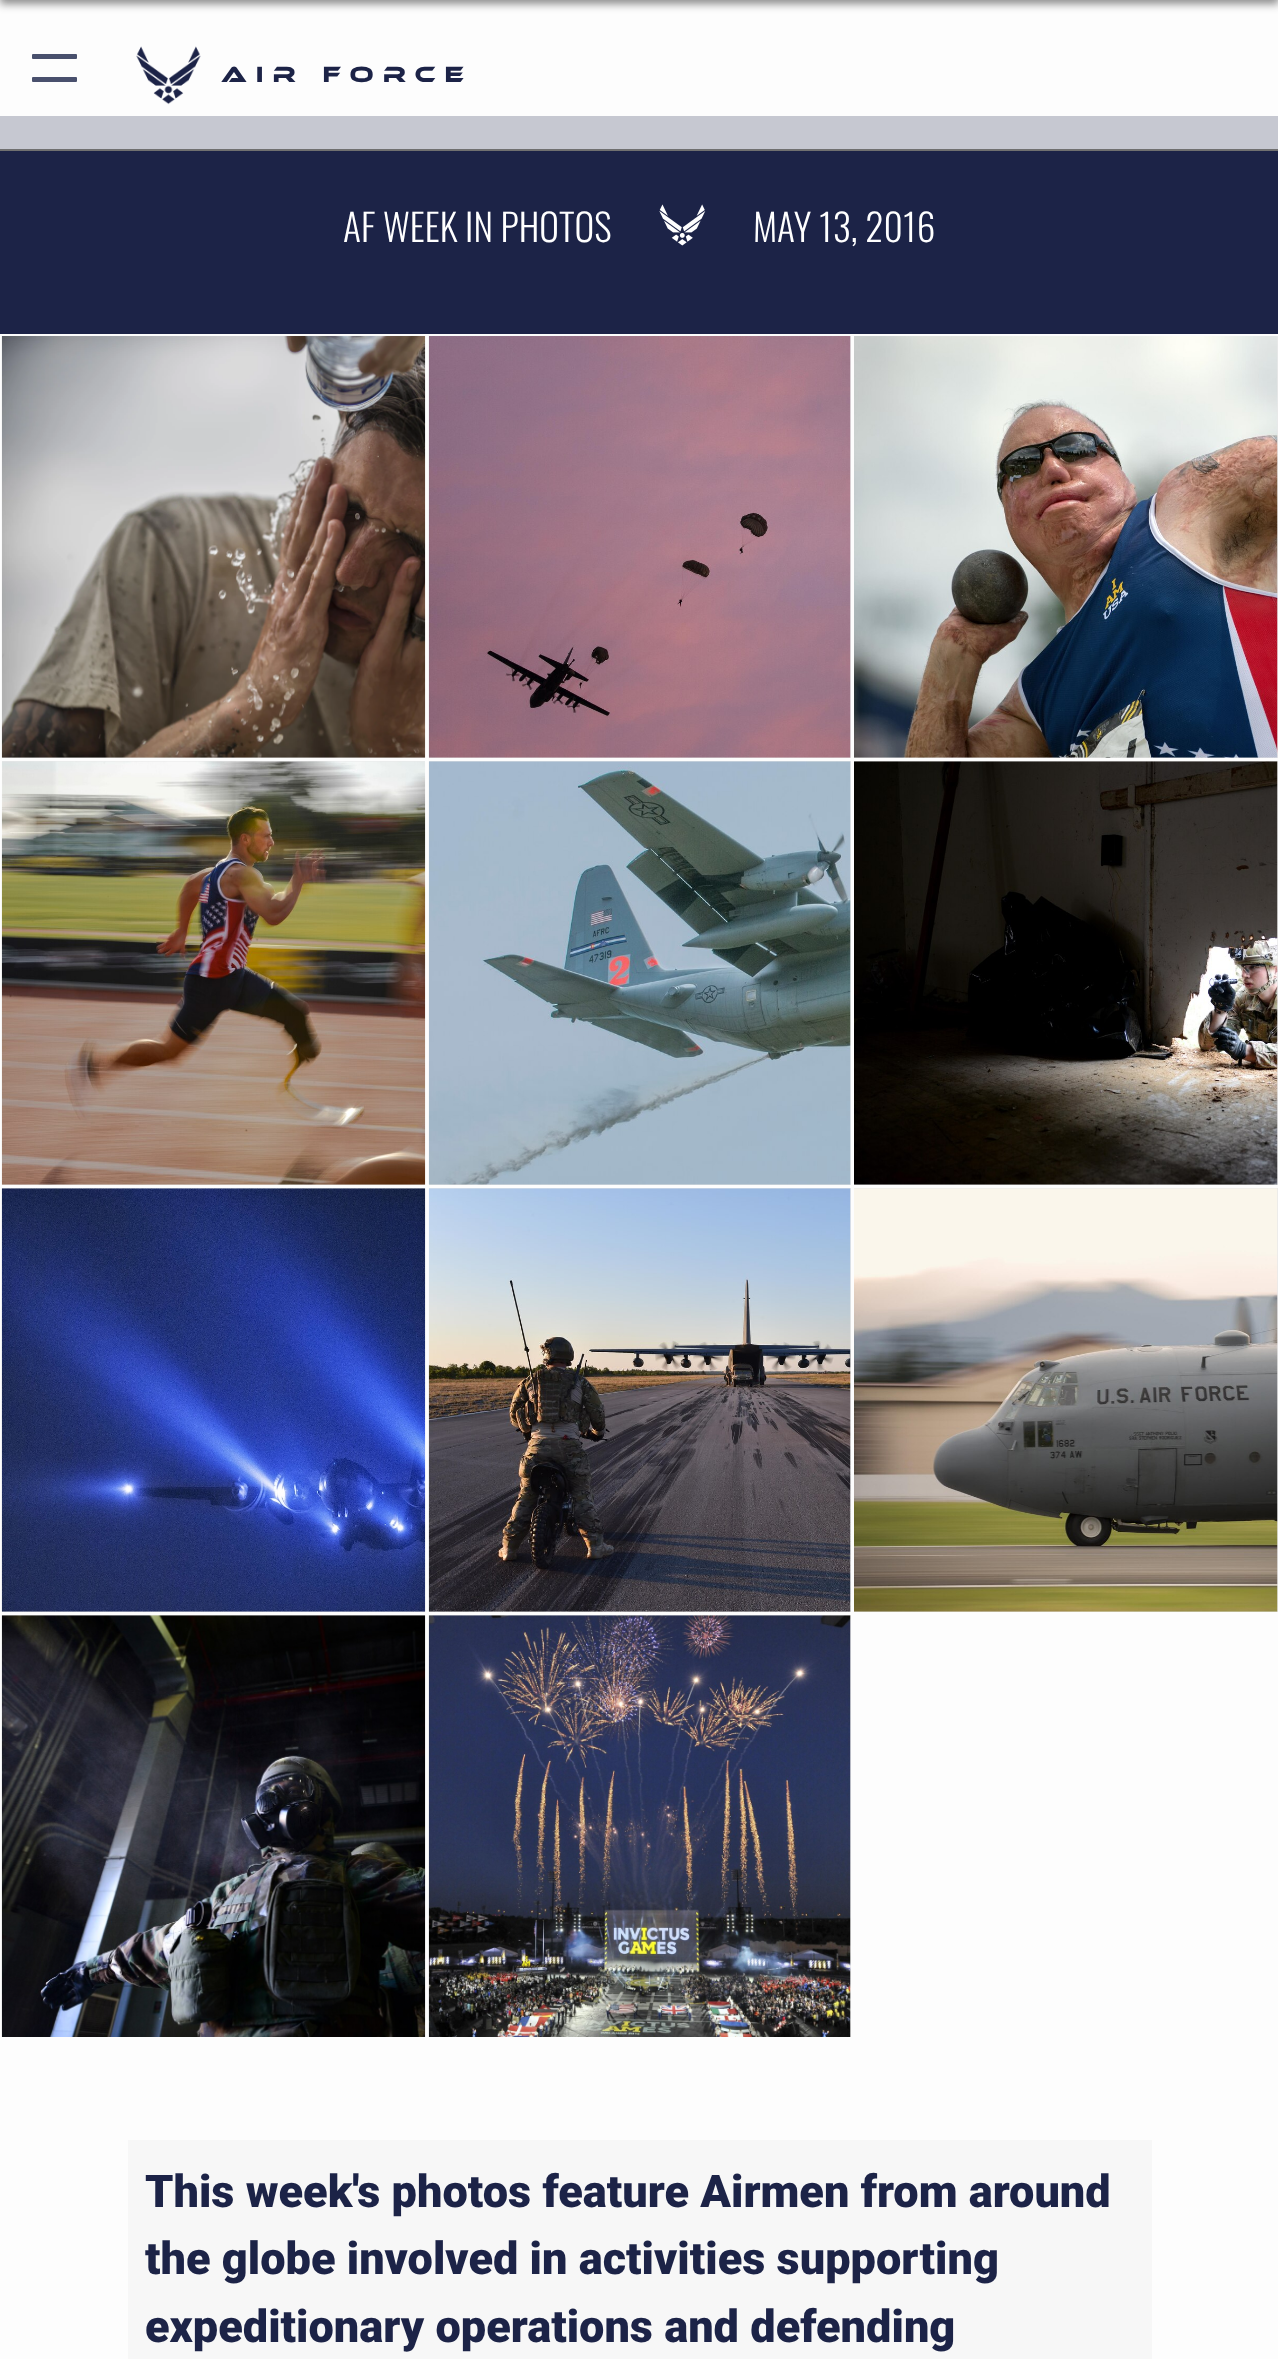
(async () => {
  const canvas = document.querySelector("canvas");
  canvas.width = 1278;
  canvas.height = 2359;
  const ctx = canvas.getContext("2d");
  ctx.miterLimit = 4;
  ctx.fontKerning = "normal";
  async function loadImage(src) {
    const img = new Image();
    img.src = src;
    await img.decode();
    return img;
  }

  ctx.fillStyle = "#fdfdfd";
  ctx.fillRect(0, 0, 1278, 2359);
  ctx.fillStyle = "rgba(25, 25, 25, 0.5)";
  ctx.filter = "blur(4.5px)";
  ctx.beginPath();
  ctx.rect(0, -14, 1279, 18);
  ctx.fill();
  ctx.filter = "none";
  ctx.fillStyle = "#707070";
  ctx.fillRect(0, 149, 1278, 2);
  ctx.fillStyle = "#49506d";
  ctx.beginPath();
  ctx.roundRect(32, 54, 45, 5, 1);
  ctx.fill();
  ctx.beginPath();
  ctx.roundRect(32, 77, 45, 5, 1);
  ctx.fill();
  ctx.drawImage(await loadImage("img/1.png"), 136, 46, 65, 59);
  ctx.fillStyle = "#1c2347";
  ctx.fillRect(0, 151, 1278, 183);
  ctx.fillStyle = "#c6c8d1";
  ctx.fillRect(0, 116, 1278, 33);
  ctx.drawImage(await loadImage("img/2.png"), 659, 204, 47, 42);
  ctx.fillStyle = "#e8e8e8";
  ctx.fillRect(2, 757, 423, 1);
  ctx.drawImage(await loadImage("img/3.png"), 1, 336, 425, 422);
  ctx.fillRect(429, 336, 422, 422);
  ctx.drawImage(await loadImage("img/4.png"), 428, 336, 423, 422);
  ctx.fillRect(854, 336, 424, 422);
  ctx.drawImage(await loadImage("img/5.png"), 854, 336, 424, 422);
  ctx.fillRect(2, 761, 423, 424);
  ctx.drawImage(await loadImage("img/6.png"), 1, 761, 425, 424);
  ctx.fillRect(429, 761, 422, 424);
  ctx.drawImage(await loadImage("img/7.png"), 428, 761, 423, 424);
  ctx.fillRect(854, 761, 424, 424);
  ctx.drawImage(await loadImage("img/8.png"), 854, 761, 424, 424);
  ctx.fillRect(2, 1188, 423, 424);
  ctx.drawImage(await loadImage("img/9.png"), 1, 1188, 425, 424);
  ctx.fillRect(429, 1188, 422, 424);
  ctx.drawImage(await loadImage("img/10.png"), 428, 1188, 423, 424);
  ctx.fillRect(854, 1188, 424, 424);
  ctx.drawImage(await loadImage("img/11.png"), 854, 1188, 424, 424);
  ctx.fillRect(2, 1615, 423, 1);
  ctx.drawImage(await loadImage("img/12.png"), 1, 1615, 425, 422);
  ctx.fillRect(429, 1615, 422, 422);
  ctx.drawImage(await loadImage("img/13.png"), 428, 1615, 423, 422);
  ctx.fillStyle = "#f7f7f7";
  ctx.fillRect(128, 2140, 1024, 219);
  ctx.letterSpacing = "9px";
  ctx.font = "22.75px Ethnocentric";
  ctx.fillStyle = "#1c2347";
  ctx.fillText("Air Force", 221, 82);
  ctx.letterSpacing = "0px";
  ctx.font = "300 37.5px Oswald";
  ctx.fillStyle = "#ffffff";
  ctx.fillText("AF WEEK IN PHOTOS", 343, 242);
  ctx.fillText("MAY 13, 2016", 753, 242);
  ctx.font = "900 45.15px Roboto";
  ctx.fillStyle = "#1c2347";
  for (const [text, x, y] of [
    ["This week's photos feature Airmen from around", 145, 2207],
    ["the globe involved in activities supporting", 145, 2274],
    ["expeditionary operations and defending", 145, 2342],
  ]) {
    ctx.fillText(text, x, y);
  }
})();
